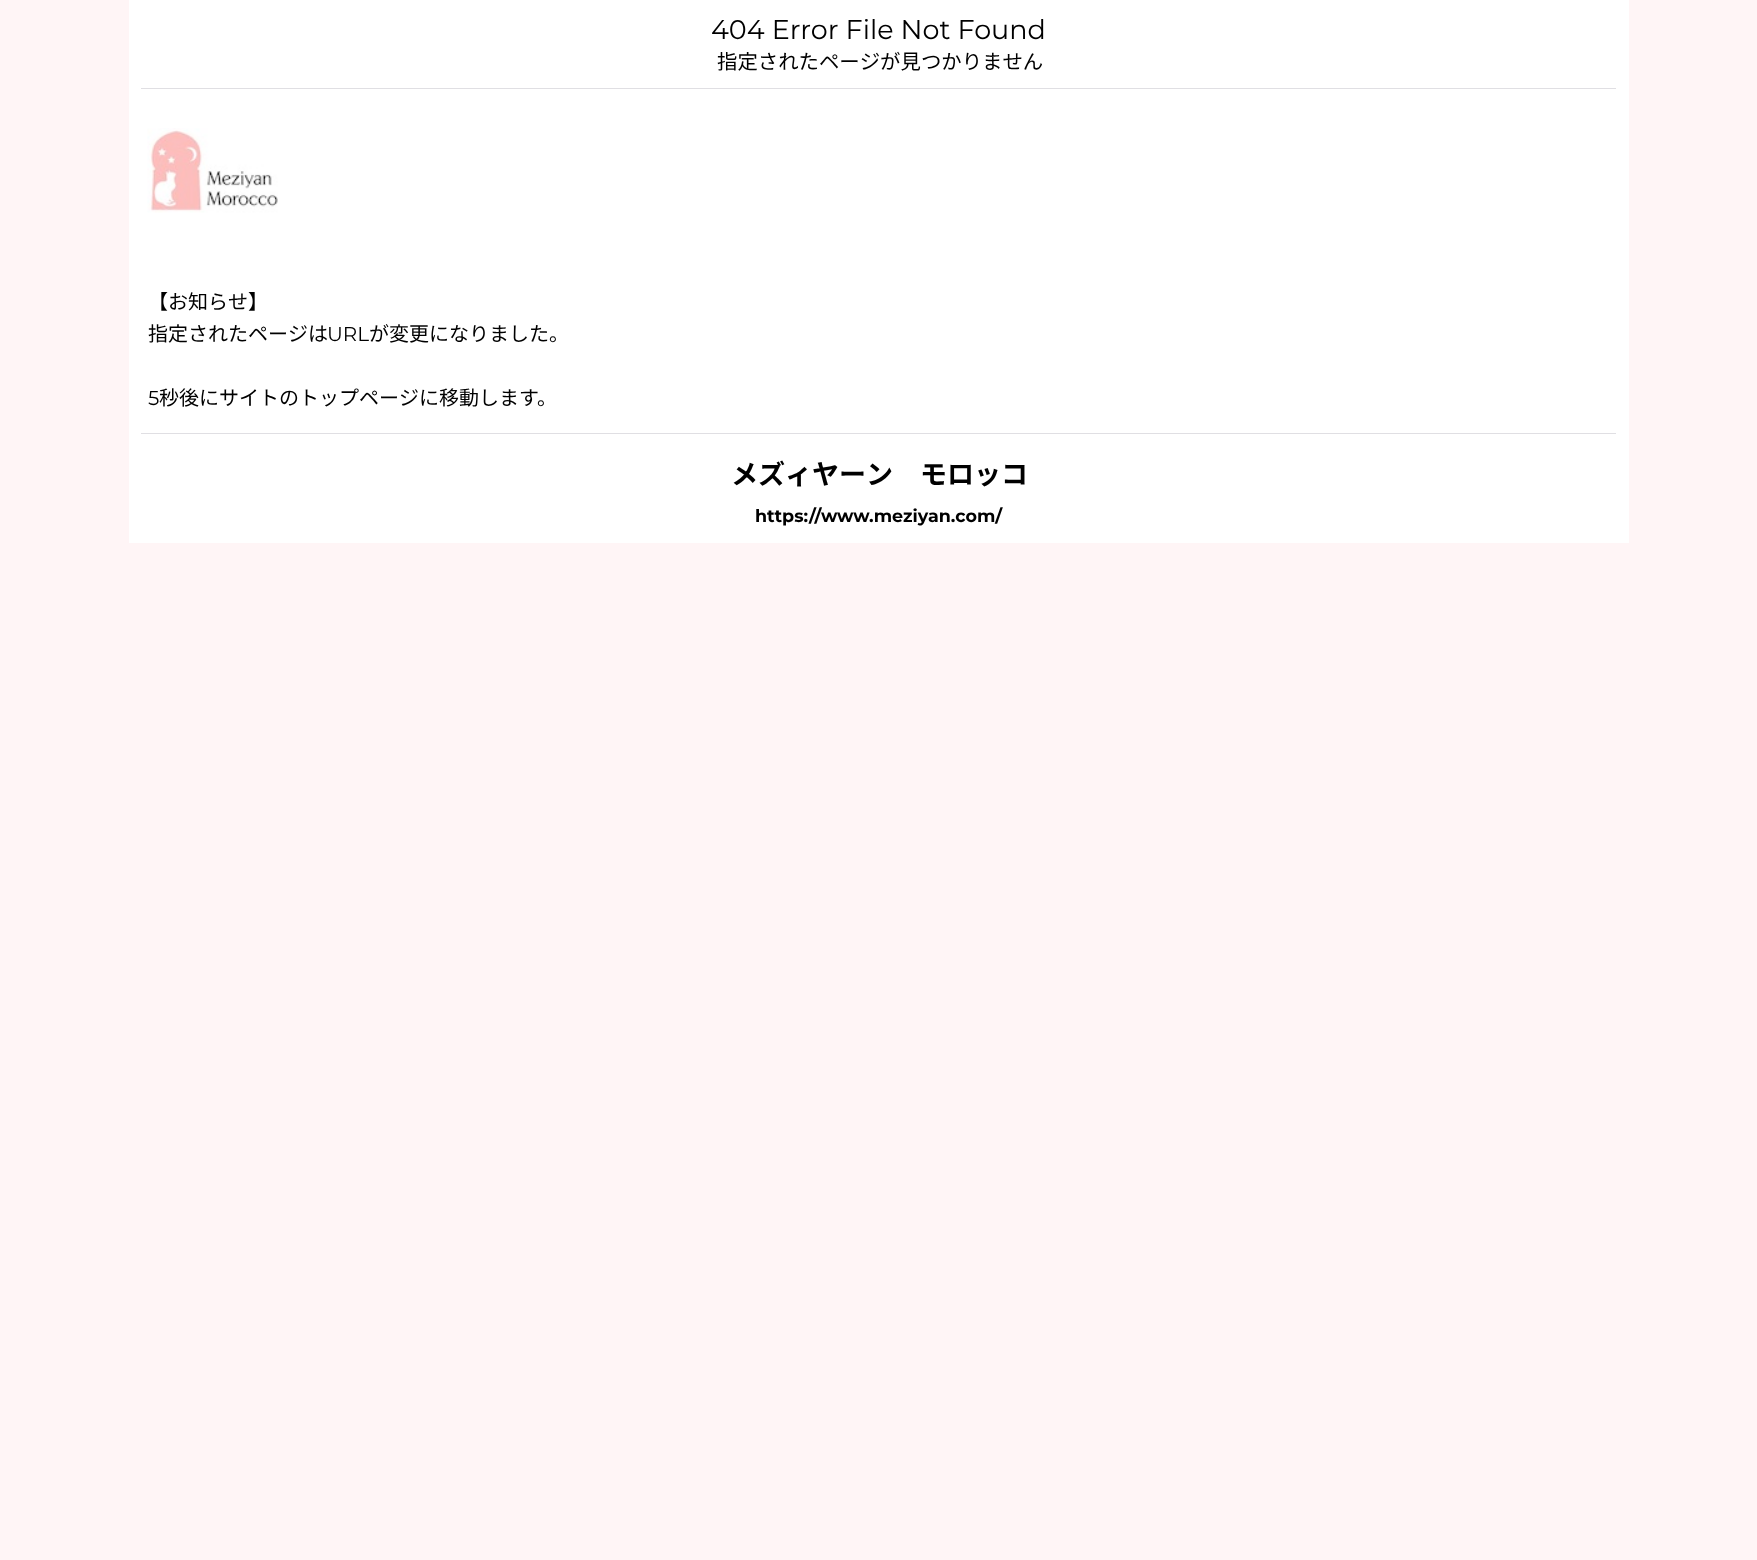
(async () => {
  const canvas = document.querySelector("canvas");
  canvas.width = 1757;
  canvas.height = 1560;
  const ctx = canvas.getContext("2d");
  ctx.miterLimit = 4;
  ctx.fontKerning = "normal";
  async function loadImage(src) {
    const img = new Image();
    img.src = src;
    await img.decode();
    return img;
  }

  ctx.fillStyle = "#fff5f6";
  ctx.fillRect(0, 0, 1757, 1560);
  for (const [x, y, w, h, color] of [
    [129, 0, 1500, 543, "#ffffff"],
    [141, 88, 1475, 1, "#e0dfe3"],
    [141, 433, 1475, 1, "#e0dfe3"],
  ]) {
    ctx.fillStyle = color;
    ctx.fillRect(x, y, w, h);
  }
  ctx.drawImage(await loadImage("img/1.png"), 147, 128, 131, 85);
  ctx.font = "27px Montserrat";
  ctx.fillStyle = "#000000";
  ctx.fillText("404 Error File Not Found", 711, 39);
  ctx.font = "20.4px Noto Sans JP";
  ctx.fillText("指定されたページが見つかりません", 717, 69);
  ctx.font = "20px Noto Sans JP";
  ctx.fillText("【お知らせ】", 148, 309);
  ctx.fillText("指定されたページは", 148, 341);
  ctx.font = "20px Montserrat";
  ctx.fillText("URL", 327, 341);
  ctx.font = "20px Noto Sans JP";
  ctx.fillText("が変更になりました。", 369, 341);
  ctx.font = "20px Montserrat";
  ctx.fillText("5", 148, 405);
  ctx.font = "20px Noto Sans JP";
  ctx.fillText("秒後にサイトのトップページに移動します。", 159, 405);
  ctx.font = "bold 27px Noto Sans JP";
  ctx.fillText("メズィヤーン　モロッコ", 731, 484);
  ctx.font = "bold 17.5px Montserrat";
  ctx.fillText("https://www.meziyan.com/", 755, 522);
})();
